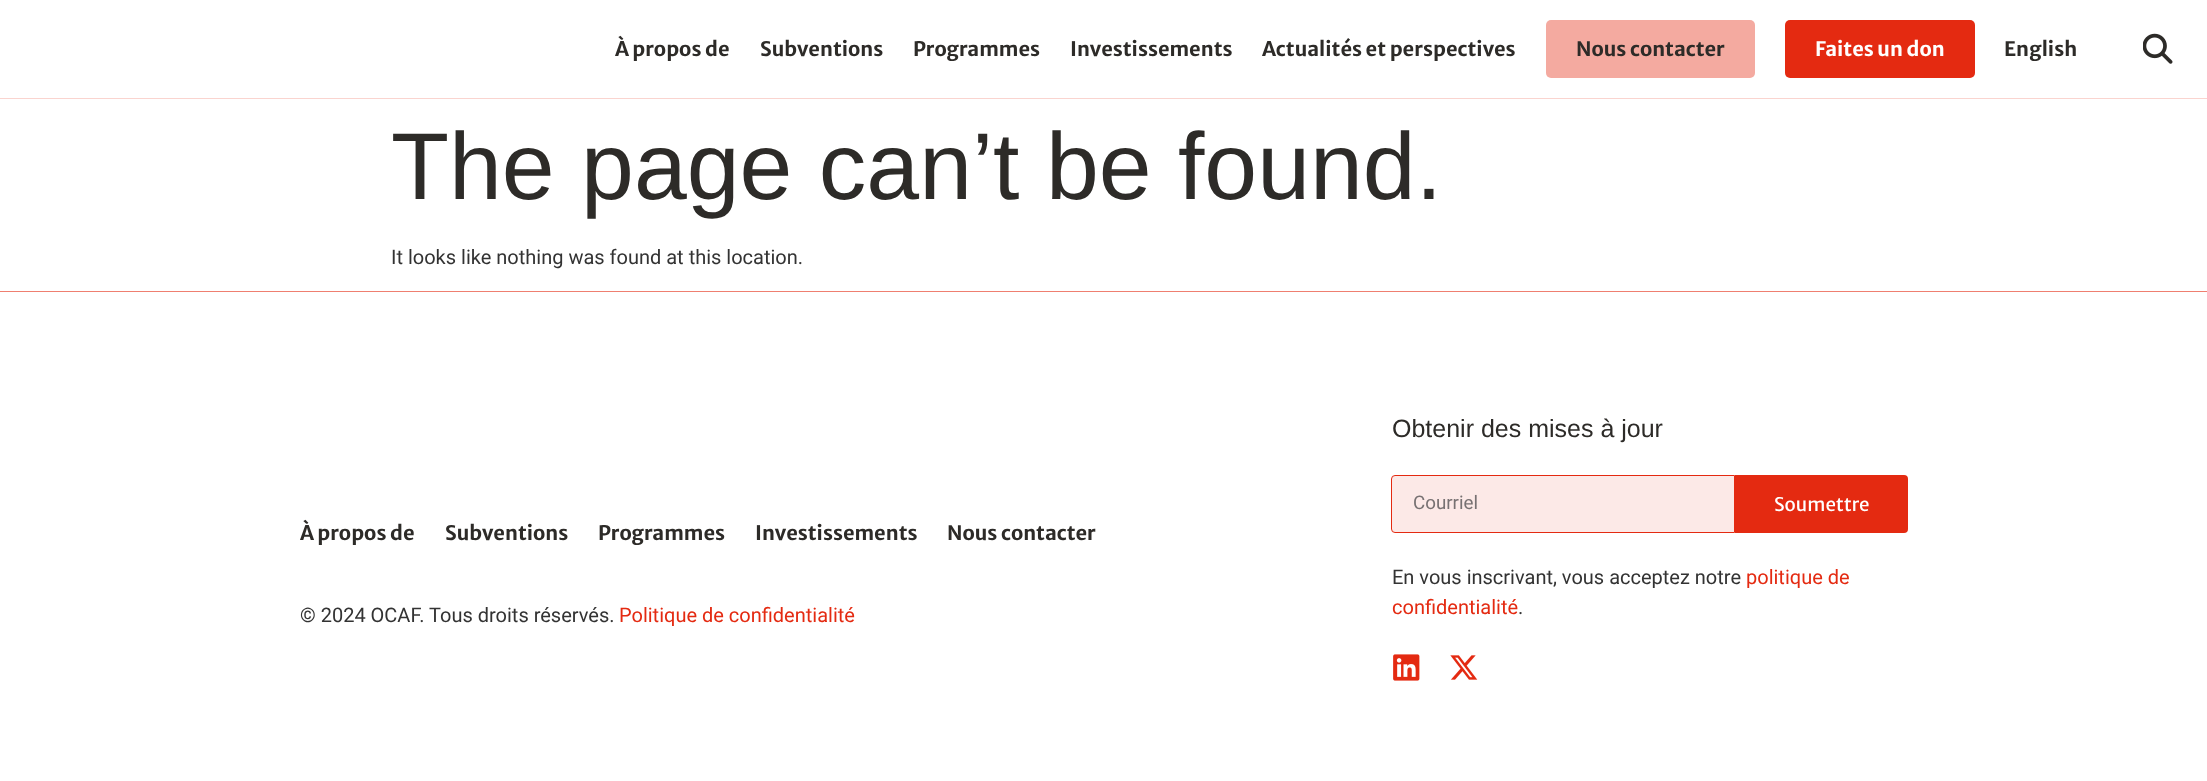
(async () => {
  const canvas = document.querySelector("canvas");
  canvas.width = 2207;
  canvas.height = 781;
  const ctx = canvas.getContext("2d");
  ctx.miterLimit = 4;
  ctx.fontKerning = "normal";
  async function loadImage(src) {
    const img = new Image();
    img.src = src;
    await img.decode();
    return img;
  }

  ctx.fillStyle = "#ffffff";
  ctx.fillRect(0, 0, 2207, 781);
  ctx.fillStyle = "#fad4cf";
  ctx.fillRect(0, 98, 2207, 1);
  ctx.fillStyle = "#f4aaa0";
  ctx.beginPath();
  ctx.roundRect(1546, 20, 209, 58, 5);
  ctx.fill();
  ctx.fillStyle = "#e42a11";
  ctx.beginPath();
  ctx.roundRect(1785, 20, 190, 58, 5);
  ctx.fill();
  ctx.drawImage(await loadImage("img/1.png"), 2143, 33, 30, 31);
  ctx.fillStyle = "#ef7f70";
  ctx.fillRect(0, 291, 2207, 1);
  ctx.fillStyle = "#fce9e7";
  ctx.beginPath();
  ctx.roundRect(1391.5, 475.5, 343, 57, [3.5, 0, 0, 3.5]);
  ctx.fill();
  ctx.strokeStyle = "#e42a11";
  ctx.stroke();
  ctx.fillStyle = "#e42a11";
  ctx.beginPath();
  ctx.roundRect(1735, 475, 173, 58, [0, 4, 4, 0]);
  ctx.fill();
  ctx.drawImage(await loadImage("img/2.png"), 1393, 654, 27, 27);
  ctx.drawImage(await loadImage("img/3.png"), 1450, 655, 28, 25);
  ctx.font = "bold 20px Merriweather Sans";
  ctx.fillStyle = "#2d2b28";
  for (const [text, x, y] of [
    ["À propos de", 615, 56],
    ["Subventions", 760, 56],
    ["Programmes", 913, 56],
    ["Investissements", 1070, 56],
    ["Actualités et perspectives", 1262, 56],
    ["Nous contacter", 1576, 56],
  ]) {
    ctx.fillText(text, x, y);
  }
  ctx.fillStyle = "#ffffff";
  ctx.fillText("Faites un don", 1815, 56);
  ctx.fillStyle = "#2d2b28";
  ctx.fillText("English", 2004, 56);
  ctx.font = "95px Liberation Sans";
  ctx.fillText("The page can’t be found.", 391, 199);
  ctx.font = "20px Roboto";
  ctx.fillStyle = "#333333";
  ctx.fillText("It looks like nothing was found at this location.", 391, 264);
  ctx.font = "bold 20px Merriweather Sans";
  ctx.fillStyle = "#2d2b28";
  for (const [text, x, y] of [
    ["À propos de", 300, 540],
    ["Subventions", 445, 540],
    ["Programmes", 598, 540],
    ["Investissements", 755, 540],
    ["Nous contacter", 947, 540],
  ]) {
    ctx.fillText(text, x, y);
  }
  ctx.font = "20px Roboto";
  ctx.fillStyle = "#333333";
  ctx.fillText("© 2024 OCAF. Tous droits réservés.", 300, 622);
  ctx.fillStyle = "#e42a11";
  ctx.fillText("Politique de confidentialité", 619, 622);
  ctx.font = "25px Liberation Sans";
  ctx.fillStyle = "#2d2b28";
  ctx.fillText("Obtenir des mises à jour", 1392, 437);
  ctx.font = "18.75px Roboto";
  ctx.fillStyle = "#777172";
  ctx.fillText("Courriel", 1413, 509);
  ctx.font = "18.75px Merriweather Sans";
  ctx.fillStyle = "#ffffff";
  ctx.fillText("Soumettre", 1774, 511);
  ctx.font = "20px Roboto";
  ctx.fillStyle = "#333333";
  ctx.fillText("En vous inscrivant, vous acceptez notre", 1392, 584);
  ctx.fillStyle = "#e42a11";
  ctx.fillText("politique de", 1746, 584);
  ctx.fillText("confidentialité", 1392, 614);
  ctx.fillStyle = "#333333";
  ctx.fillText(".", 1518, 614);
})();
